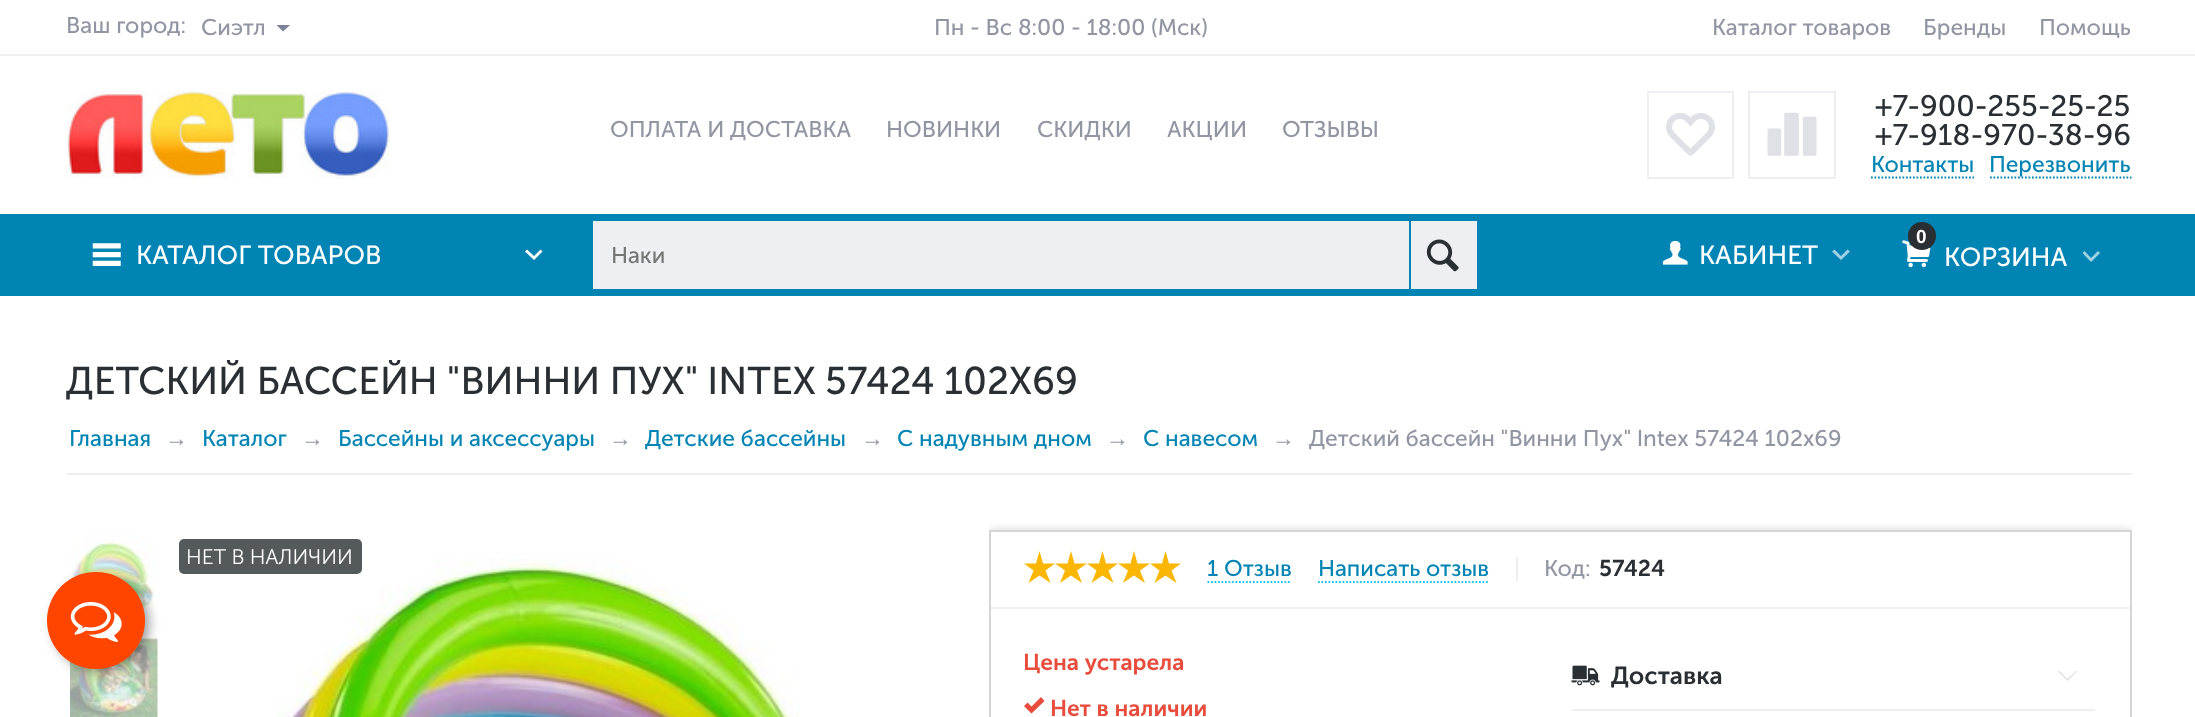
(async () => {
  const canvas = document.querySelector("canvas");
  canvas.width = 2195;
  canvas.height = 717;
  const ctx = canvas.getContext("2d");
  ctx.miterLimit = 4;
  ctx.fontKerning = "normal";
  async function loadImage(src) {
    const img = new Image();
    img.src = src;
    await img.decode();
    return img;
  }
  let path;

  ctx.fillStyle = "#ffffff";
  ctx.fillRect(0, 0, 2195, 717);
  ctx.fillStyle = "#eeeff2";
  ctx.fillRect(0, 54, 2195, 2);
  ctx.fillStyle = "#7a829a";
  path = new Path2D("M283 31.5L276.5 25H290Z");
  ctx.fill(path);
  ctx.drawImage(await loadImage("img/1.png"), 66, 91, 324, 88);
  ctx.strokeStyle = "#eeeff2";
  ctx.lineWidth = 2;
  ctx.strokeRect(1648, 92, 85, 86);
  ctx.drawImage(await loadImage("img/2.png"), 1666, 113, 49, 43);
  ctx.strokeRect(1749, 92, 86, 86);
  ctx.drawImage(await loadImage("img/3.png"), 1767, 112, 50, 44);
  path = new Path2D("M1871 177.5H1974");
  ctx.strokeStyle = "#0084b4";
  ctx.lineWidth = 1.8;
  ctx.setLineDash([1.75, 1.75]);
  ctx.stroke(path);
  path = new Path2D("M1990 177.5H2131.5");
  ctx.stroke(path);
  ctx.fillStyle = "#0084b4";
  ctx.fillRect(0, 214, 2195, 82);
  ctx.drawImage(await loadImage("img/4.png"), 92, 243, 29, 23);
  ctx.fillStyle = "#ffffff";
  path = new Path2D("M540.5 249.5L534 256L527 249.5L525 251.5L534 260L542.5 251.5Z");
  ctx.fill(path);
  ctx.fillStyle = "#eeeff2";
  ctx.fillRect(593, 221, 816, 68);
  ctx.fillRect(1411, 221, 66, 68);
  ctx.drawImage(await loadImage("img/5.png"), 1426, 239, 33, 33);
  ctx.drawImage(await loadImage("img/6.png"), 1662, 240, 26, 25);
  ctx.fillStyle = "#a1d1e3";
  path = new Path2D("M1847.5 249.5L1841 256L1834.5 249.5L1832 251.5L1841 260L1850 251.5Z");
  ctx.fill(path);
  ctx.drawImage(await loadImage("img/7.png"), 1902, 240, 29, 28);
  ctx.fillStyle = "#292f33";
  ctx.beginPath();
  ctx.arc(1922, 236, 14, 0, Math.PI * 2);
  ctx.fill();
  ctx.fillStyle = "#a1d1e3";
  path = new Path2D("M2098 251L2091 258L2084.5 251L2082.5 253L2091 262L2100 253Z");
  ctx.fill(path);
  ctx.fillStyle = "#eeeff2";
  ctx.fillRect(67, 473, 2065, 2);
  ctx.drawImage(await loadImage("img/8.png"), 70, 534, 85, 84);
  ctx.drawImage(await loadImage("img/9.png"), 70, 637, 88, 80);
  ctx.drawImage(await loadImage("img/10.png"), 277, 558, 523, 159);
  ctx.fillStyle = "#54595c";
  ctx.beginPath();
  ctx.roundRect(179, 539, 183, 35, 5);
  ctx.fill();
  ctx.save();
  ctx.beginPath();
  ctx.rect(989, 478, 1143, 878);
  ctx.clip();
  ctx.beginPath();
  ctx.rect(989, 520, 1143, 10);
  ctx.clip();
  ctx.fillStyle = "#d5d5d5";
  ctx.filter = "blur(5px)";
  ctx.beginPath();
  ctx.rect(989, 530, 1143, 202);
  ctx.fill();
  ctx.filter = "none";
  ctx.restore();
  ctx.strokeStyle = "#d5d5d5";
  ctx.lineWidth = 2;
  ctx.setLineDash([]);
  ctx.strokeRect(990, 531, 1141, 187);
  ctx.fillStyle = "#eeeff2";
  ctx.fillRect(991, 607, 1139, 2);
  ctx.fillRect(1516, 557, 2, 24);
  ctx.fillStyle = "#fab600";
  path = new Path2D("M1039.5 551L1043 563.5H1055L1045.5 570.5L1050.5 583L1039.5 575.5L1028.5 583L1033.5 570.5L1024 563.5H1036ZM1071 551L1074.5 563.5H1087L1077 570.5L1082 583L1071 575.5L1060 583L1065 570.5L1055 563.5H1067.5Z");
  ctx.fill(path);
  path = new Path2D("M1102.5 551L1106 563.5H1118L1108.5 570.5L1113.5 583L1102.5 575.5L1091.5 583L1096.5 570.5L1087 563.5H1099ZM1134 551L1137.5 563.5H1150L1140 570.5L1145 583L1134 575.5L1123 583L1128 570.5L1118 563.5H1130.5Z");
  ctx.fill(path);
  path = new Path2D("M1165.5 551L1169 563.5H1181L1171.5 570.5L1176.5 583L1165.5 575.5L1154.5 583L1159.5 570.5L1150 563.5H1162Z");
  ctx.fill(path);
  path = new Path2D("M1207.5 582H1291.5");
  ctx.strokeStyle = "#1bc2ff";
  ctx.lineWidth = 1.8;
  ctx.setLineDash([1.75, 1.75]);
  ctx.stroke(path);
  path = new Path2D("M1318 582H1489");
  ctx.stroke(path);
  ctx.fillStyle = "#e74c3c";
  path = new Path2D("M1031.5 713.5L1024 706L1027.5 702.5L1031.5 706.5L1041 697L1044.5 701Z");
  ctx.fill(path);
  ctx.drawImage(await loadImage("img/11.png"), 1571, 665, 29, 21);
  ctx.fillStyle = "#e0e1e7";
  path = new Path2D("M2076.5 670.5L2067.5 679L2059 670.5L2058 671.5L2067.5 681L2077 671.5Z");
  ctx.fill(path);
  ctx.fillStyle = "#eeeff2";
  ctx.fillRect(1572, 709, 523, 2);
  ctx.fillStyle = "rgba(0, 0, 0, 0.4)";
  ctx.filter = "blur(6px)";
  ctx.beginPath();
  ctx.roundRect(53, 576, 96, 96, 48);
  ctx.fill();
  ctx.filter = "none";
  ctx.fillStyle = "#ff4500";
  ctx.beginPath();
  ctx.roundRect(47, 572, 98, 97, 48.5);
  ctx.fill();
  ctx.drawImage(await loadImage("img/12.png"), 70, 602, 52, 40);
  ctx.font = "22.75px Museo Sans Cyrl";
  ctx.fillStyle = "#9296a2";
  for (const [text, x, y] of [
    ["Ваш город:", 66, 33],
    ["Сиэтл", 201, 35],
    ["Пн - Вс 8:00 - 18:00 (Мск)", 934, 35],
    ["Каталог товаров", 1712, 35],
    ["Бренды", 1923, 35],
    ["Помощь", 2039, 35],
    ["ОПЛАТА И ДОСТАВКА", 610, 137],
    ["НОВИНКИ", 886, 137],
    ["СКИДКИ", 1037, 137],
    ["АКЦИИ", 1167, 137],
    ["ОТЗЫВЫ", 1282, 137],
  ]) {
    ctx.fillText(text, x, y);
  }
  ctx.font = "29.75px Museo Sans Cyrl";
  ctx.fillStyle = "#292f33";
  ctx.fillText("+7-900-255-25-25", 1875, 116);
  ctx.fillText("+7-918-970-38-96", 1875, 145);
  ctx.font = "22.75px Museo Sans Cyrl";
  ctx.fillStyle = "#0084b4";
  ctx.fillText("Контакты", 1871, 172);
  ctx.fillText("Перезвонить", 1989, 172);
  ctx.font = "26.25px Museo Sans Cyrl";
  ctx.fillStyle = "#ffffff";
  ctx.fillText("КАТАЛОГ ТОВАРОВ", 136, 264);
  ctx.font = "22.75px Museo Sans Cyrl";
  ctx.fillStyle = "#757575";
  ctx.fillText("Наки", 611, 263);
  ctx.font = "26.25px Museo Sans Cyrl";
  ctx.fillStyle = "#ffffff";
  ctx.fillText("КАБИНЕТ", 1699, 264);
  ctx.font = "bold 19px Liberation Sans";
  ctx.fillText("0", 1916, 243);
  ctx.font = "26.25px Museo Sans Cyrl";
  ctx.fillText("КОРЗИНА", 1944, 266);
  ctx.font = "38.5px Museo Sans Cyrl";
  ctx.fillStyle = "#292f33";
  ctx.fillText("ДЕТСКИЙ БАССЕЙН \"ВИННИ ПУХ\" INTEX 57424 102Х69", 66, 394);
  ctx.font = "22.75px Museo Sans Cyrl";
  ctx.fillStyle = "#0084b4";
  ctx.fillText("Главная", 69, 446);
  ctx.font = "22.75px Liberation Sans";
  ctx.fillStyle = "#9296a2";
  ctx.fillText("→", 165, 446);
  ctx.font = "22.75px Museo Sans Cyrl";
  ctx.fillStyle = "#0084b4";
  ctx.fillText("Каталог", 202, 446);
  ctx.font = "22.75px Liberation Sans";
  ctx.fillStyle = "#9296a2";
  ctx.fillText("→", 301, 446);
  ctx.font = "22.75px Museo Sans Cyrl";
  ctx.fillStyle = "#0084b4";
  ctx.fillText("Бассейны и аксессуары", 338, 446);
  ctx.font = "22.75px Liberation Sans";
  ctx.fillStyle = "#9296a2";
  ctx.fillText("→", 609, 446);
  ctx.font = "22.75px Museo Sans Cyrl";
  ctx.fillStyle = "#0084b4";
  ctx.fillText("Детские бассейны", 645, 446);
  ctx.font = "22.75px Liberation Sans";
  ctx.fillStyle = "#9296a2";
  ctx.fillText("→", 861, 446);
  ctx.font = "22.75px Museo Sans Cyrl";
  ctx.fillStyle = "#0084b4";
  ctx.fillText("С надувным дном", 897, 446);
  ctx.font = "22.75px Liberation Sans";
  ctx.fillStyle = "#9296a2";
  ctx.fillText("→", 1106, 446);
  ctx.font = "22.75px Museo Sans Cyrl";
  ctx.fillStyle = "#0084b4";
  ctx.fillText("С навесом", 1143, 446);
  ctx.font = "22.75px Liberation Sans";
  ctx.fillStyle = "#9296a2";
  ctx.fillText("→", 1272, 446);
  ctx.font = "22.75px Museo Sans Cyrl";
  ctx.fillText("Детский бассейн \"Винни Пух\" Intex 57424 102х69", 1309, 446);
  ctx.font = "300 21px Museo Sans Cyrl";
  ctx.fillStyle = "#ffffff";
  ctx.fillText("НЕТ В НАЛИЧИИ", 186, 564);
  ctx.font = "22.75px Museo Sans Cyrl";
  ctx.fillStyle = "#0084b4";
  ctx.fillText("1 Отзыв", 1207, 576);
  ctx.fillText("Написать отзыв", 1318, 576);
  ctx.fillStyle = "#9296a2";
  ctx.fillText("Код:", 1544, 576);
  ctx.font = "600 22.75px Museo Sans Cyrl";
  ctx.fillStyle = "#292f33";
  ctx.fillText("57424", 1599, 576);
  ctx.fillStyle = "#e74c3c";
  ctx.fillText("Цена устарела", 1023, 670);
  ctx.fillText("Нет в наличии", 1050, 716);
  ctx.font = "600 24.5px Museo Sans Cyrl";
  ctx.fillStyle = "#292f33";
  ctx.fillText("Доставка", 1611, 684);
})();
